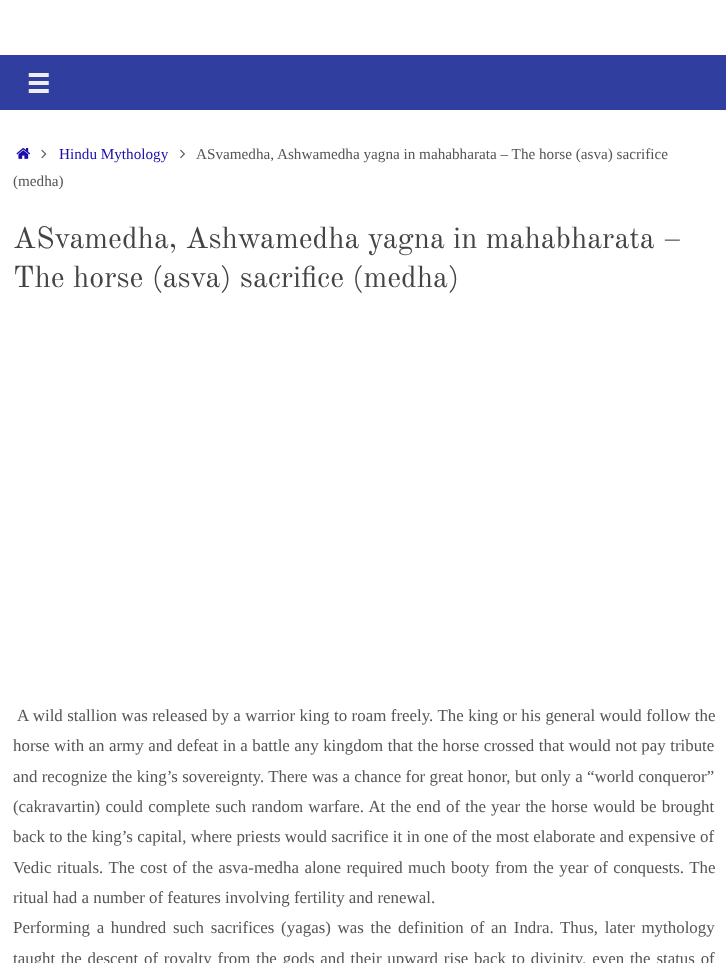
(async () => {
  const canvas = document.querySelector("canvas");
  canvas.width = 726;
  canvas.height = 963;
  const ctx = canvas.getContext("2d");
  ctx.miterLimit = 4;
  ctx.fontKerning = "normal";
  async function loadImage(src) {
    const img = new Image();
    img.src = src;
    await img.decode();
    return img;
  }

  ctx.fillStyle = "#ffffff";
  ctx.fillRect(0, 0, 726, 963);
  ctx.fillStyle = "#303f9f";
  ctx.fillRect(0, 55, 726, 55);
  ctx.drawImage(await loadImage("img/1.png"), 28, 73, 21, 20);
  ctx.drawImage(await loadImage("img/2.png"), 16, 148, 15, 11);
  ctx.drawImage(await loadImage("img/3.png"), 41, 149, 6, 10);
  ctx.drawImage(await loadImage("img/4.png"), 180, 149, 5, 10);
  ctx.font = "15.2px Liberation Serif";
  ctx.fillStyle = "#1a0dab";
  ctx.fillText("Hindu Mythology", 59, 159);
  ctx.fillStyle = "#555555";
  ctx.fillText("ASvamedha, Ashwamedha yagna in mahabharata – The horse (asva) sacrifice", 196, 159);
  ctx.fillText("(medha)", 13, 186);
  ctx.font = "30px Old Standard TT";
  ctx.fillStyle = "#444444";
  ctx.fillText("ASvamedha, Ashwamedha yagna in mahabharata –", 13, 248);
  ctx.fillText("The horse (asva) sacrifice (medha)", 13, 287);
  ctx.wordSpacing = "0.25px";
  ctx.font = "16.9px Liberation Serif";
  ctx.fillStyle = "#555555";
  ctx.fillText("A wild stallion was released by a warrior king to roam freely. The king or his general would follow the", 17, 721);
  ctx.fillText("horse with an army and defeat in a battle any kingdom that the horse crossed that would not pay tribute", 13, 751);
  ctx.wordSpacing = "0.1px";
  ctx.fillText("and recognize the king’s sovereignty. There was a chance for great honor, but only a “world conqueror”", 13, 782);
  ctx.wordSpacing = "1px";
  ctx.fillText("(cakravartin) could complete such random warfare. At the end of the year the horse would be brought", 13, 812);
  ctx.wordSpacing = "0.1px";
  ctx.fillText("back to the king’s capital, where priests would sacrifice it in one of the most elaborate and expensive of", 13, 842);
  ctx.wordSpacing = "1.2px";
  ctx.fillText("Vedic rituals. The cost of the asva-medha alone required much booty from the year of conquests. The", 13, 873);
  ctx.wordSpacing = "0px";
  ctx.fillText("ritual had a number of features involving fertility and renewal.", 13, 903);
  ctx.wordSpacing = "2.5px";
  ctx.fillText("Performing a hundred such sacrifices (yagas) was the definition of an Indra. Thus, later mythology", 13, 933);
  ctx.wordSpacing = "1.6px";
  ctx.fillText("taught the descent of royalty from the gods and their upward rise back to divinity, even the status of", 13, 964);
})();
